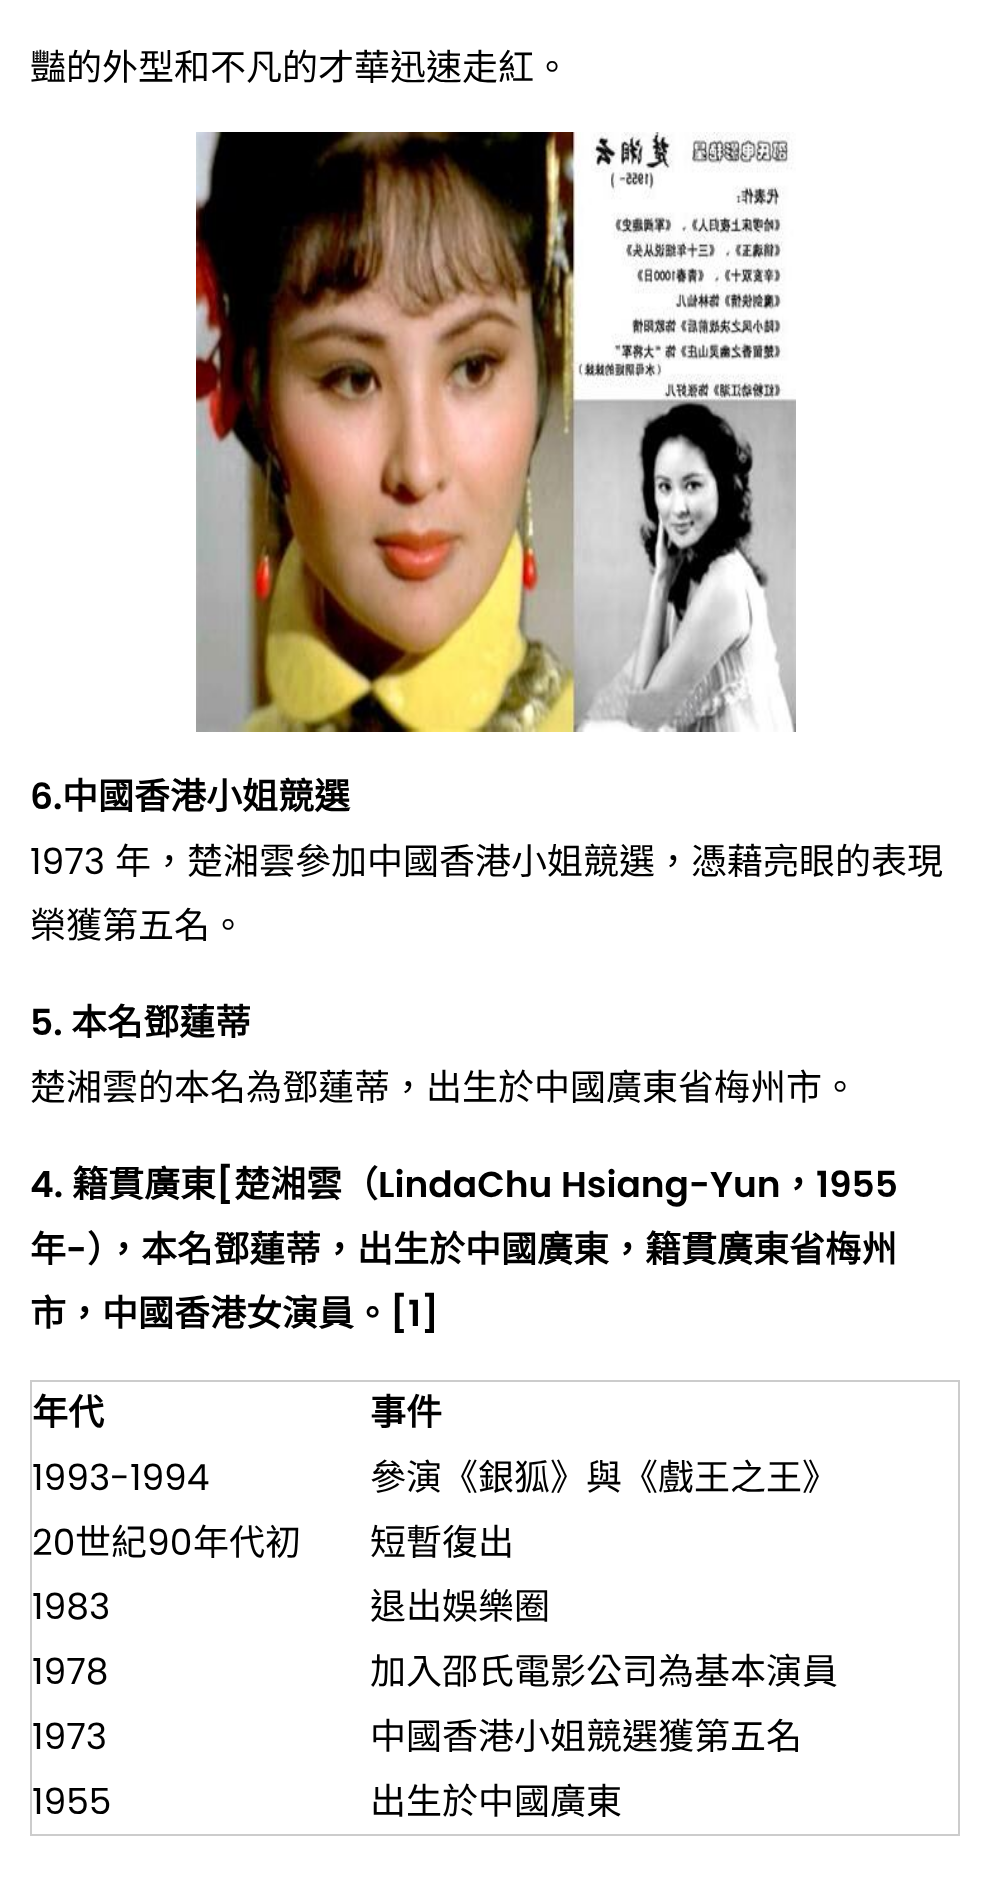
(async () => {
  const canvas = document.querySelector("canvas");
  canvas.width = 989;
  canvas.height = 1877;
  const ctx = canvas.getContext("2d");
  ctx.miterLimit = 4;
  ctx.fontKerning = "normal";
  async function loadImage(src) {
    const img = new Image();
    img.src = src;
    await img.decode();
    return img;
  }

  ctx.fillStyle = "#ffffff";
  ctx.fillRect(0, 0, 989, 1877);
  ctx.drawImage(await loadImage("img/1.png"), 196, 132, 600, 600);
  for (const [x, y, w, h, color] of [
    [30, 1380, 930, 2, "#cccccc"],
    [958, 1380, 2, 456, "#cccccc"],
    [30, 1834, 930, 2, "#cccccc"],
    [30, 1380, 2, 456, "#cccccc"],
  ]) {
    ctx.fillStyle = color;
    ctx.fillRect(x, y, w, h);
  }
  ctx.font = "36px Noto Sans CJK TC";
  ctx.fillStyle = "#000000";
  ctx.fillText("豔的外型和不凡的才華迅速走紅。", 30, 80);
  ctx.font = "600 36px Poppins";
  ctx.fillText("6.", 30, 809);
  ctx.font = "bold 36px Noto Sans CJK TC";
  ctx.fillText("中國香港小姐競選", 62, 809);
  ctx.font = "36px Poppins";
  ctx.fillText("1973", 30, 874);
  ctx.font = "36px Noto Sans CJK TC";
  ctx.fillText("年，楚湘雲參加中國香港小姐競選，憑藉亮眼的表現", 115, 874);
  ctx.fillText("榮獲第五名。", 30, 938);
  ctx.font = "600 36px Poppins";
  ctx.fillText("5.", 30, 1035);
  ctx.font = "bold 36px Noto Sans CJK TC";
  ctx.fillText("本名鄧蓮蒂", 71, 1035);
  ctx.font = "36px Noto Sans CJK TC";
  ctx.fillText("楚湘雲的本名為鄧蓮蒂，出生於中國廣東省梅州市。", 30, 1100);
  ctx.font = "600 36px Poppins";
  ctx.fillText("4.", 30, 1197);
  ctx.font = "bold 36px Noto Sans CJK TC";
  ctx.fillText("籍貫廣東", 72, 1197);
  ctx.font = "600 36px Poppins";
  ctx.fillText("[", 216, 1197);
  ctx.font = "bold 36px Noto Sans CJK TC";
  ctx.fillText("楚湘雲（", 234, 1197);
  ctx.font = "600 36px Poppins";
  ctx.fillText("LindaChu Hsiang-Yun", 378, 1197);
  ctx.font = "bold 36px Noto Sans CJK TC";
  ctx.fillText("，", 780, 1197);
  ctx.font = "600 36px Poppins";
  ctx.fillText("1955", 816, 1197);
  ctx.font = "bold 36px Noto Sans CJK TC";
  ctx.fillText("年", 30, 1262);
  ctx.font = "600 36px Poppins";
  ctx.fillText("-", 66, 1262);
  ctx.font = "bold 36px Noto Sans CJK TC";
  ctx.fillText("），本名鄧蓮蒂，出生於中國廣東，籍貫廣東省梅州", 87, 1262);
  ctx.fillText("市，中國香港女演員。", 30, 1326);
  ctx.font = "600 36px Poppins";
  ctx.fillText("[1]", 390, 1326);
  ctx.font = "bold 36px Noto Sans CJK TC";
  ctx.fillText("年代", 32, 1425);
  ctx.fillText("事件", 370, 1425);
  ctx.font = "36px Poppins";
  ctx.fillText("1993-1994", 32, 1490);
  ctx.font = "36px Noto Sans CJK TC";
  ctx.fillText("參演《銀狐》與《戲王之王》", 370, 1490);
  ctx.font = "36px Poppins";
  ctx.fillText("20", 32, 1555);
  ctx.font = "36px Noto Sans CJK TC";
  ctx.fillText("世紀", 75, 1555);
  ctx.font = "36px Poppins";
  ctx.fillText("90", 147, 1555);
  ctx.font = "36px Noto Sans CJK TC";
  ctx.fillText("年代初", 193, 1555);
  ctx.fillText("短暫復出", 370, 1555);
  ctx.font = "36px Poppins";
  ctx.fillText("1983", 32, 1619);
  ctx.font = "36px Noto Sans CJK TC";
  ctx.fillText("退出娛樂圈", 370, 1619);
  ctx.font = "36px Poppins";
  ctx.fillText("1978", 32, 1684);
  ctx.font = "36px Noto Sans CJK TC";
  ctx.fillText("加入邵氏電影公司為基本演員", 370, 1684);
  ctx.font = "36px Poppins";
  ctx.fillText("1973", 32, 1749);
  ctx.font = "36px Noto Sans CJK TC";
  ctx.fillText("中國香港小姐競選獲第五名", 370, 1749);
  ctx.font = "36px Poppins";
  ctx.fillText("1955", 32, 1814);
  ctx.font = "36px Noto Sans CJK TC";
  ctx.fillText("出生於中國廣東", 370, 1814);
})();
